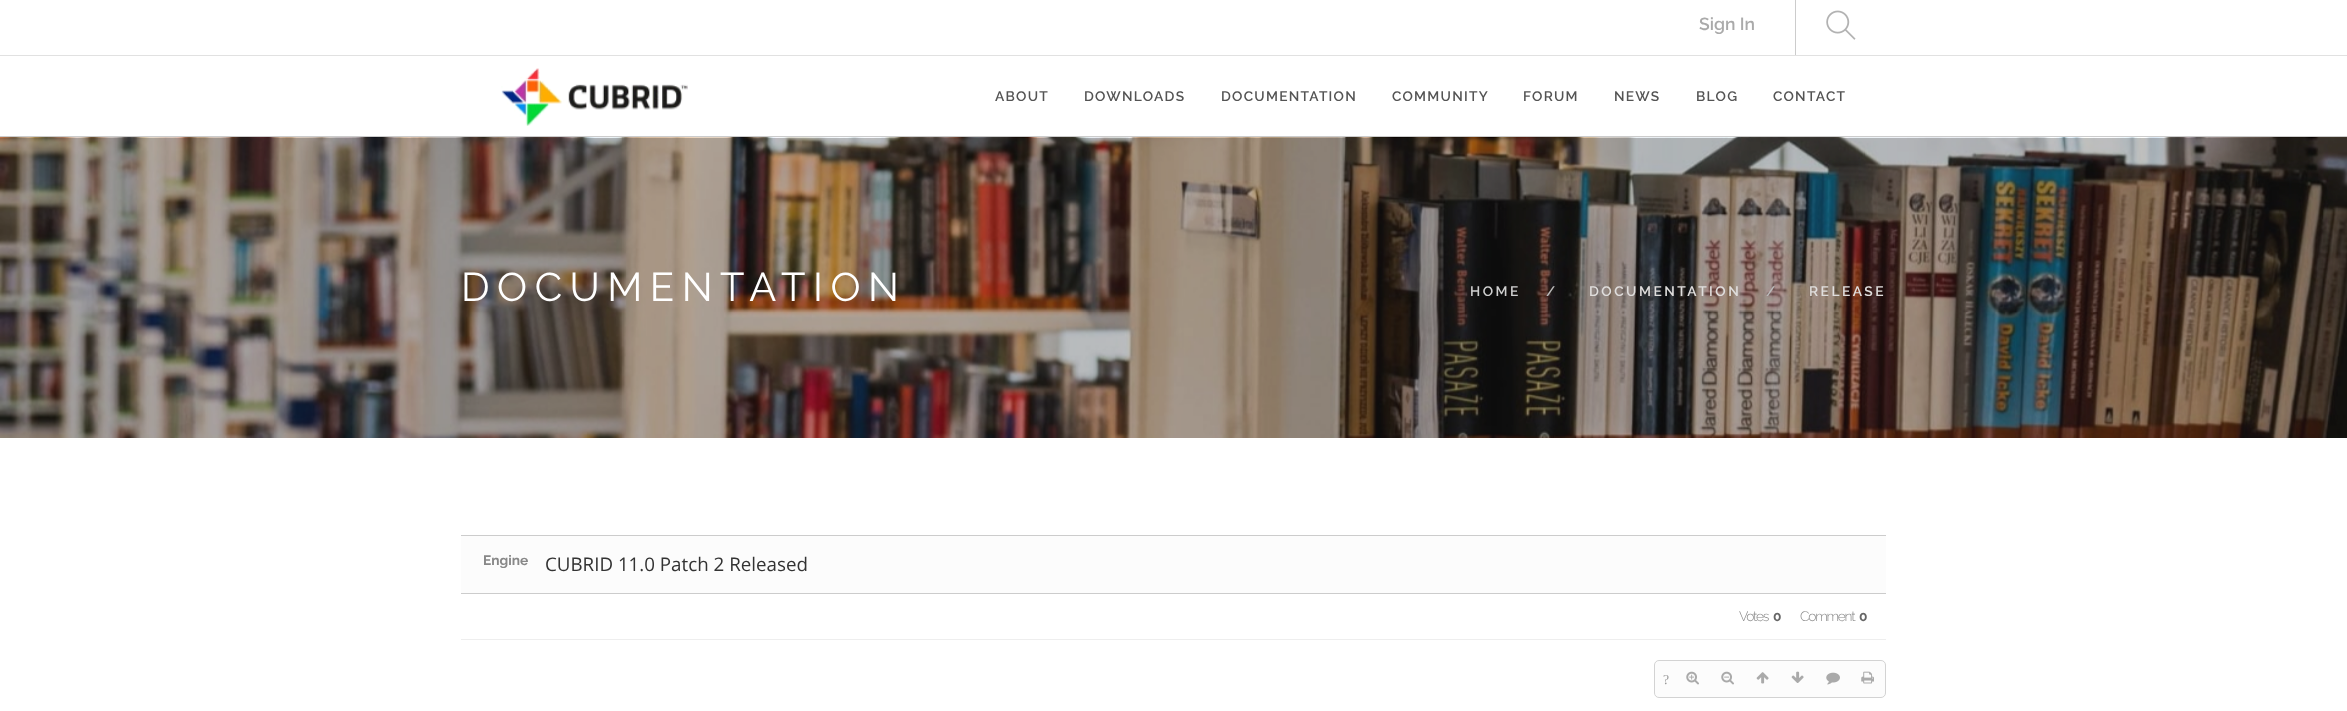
(async () => {
  const canvas = document.querySelector("canvas");
  canvas.width = 2347;
  canvas.height = 711;
  const ctx = canvas.getContext("2d");
  ctx.miterLimit = 4;
  ctx.fontKerning = "normal";
  async function loadImage(src) {
    const img = new Image();
    img.src = src;
    await img.decode();
    return img;
  }

  ctx.fillStyle = "#ffffff";
  ctx.fillRect(0, 0, 2347, 711);
  ctx.fillStyle = "#e1e1e1";
  ctx.fillRect(0, 55, 2347, 1);
  ctx.fillStyle = "#cccccc";
  ctx.fillRect(1795, 0, 1, 55);
  ctx.drawImage(await loadImage("img/1.png"), 1826, 10, 30, 30);
  ctx.fillRect(0, 136, 2347, 1);
  ctx.drawImage(await loadImage("img/2.png"), 501, 68, 187, 58);
  ctx.drawImage(await loadImage("img/3.png"), 0, 137, 2347, 301);
  for (const [x, y, w, h, color] of [
    [461, 536, 1425, 57, "#fcfcfc"],
    [461, 535, 1425, 1, "#cccccc"],
    [461, 593, 1425, 1, "#cccccc"],
    [461, 639, 1425, 1, "#eeeeee"],
  ]) {
    ctx.fillStyle = color;
    ctx.fillRect(x, y, w, h);
  }
  ctx.fillStyle = "#fcfcfc";
  ctx.beginPath();
  ctx.roundRect(1654.5, 660.5, 231, 37, 4.5);
  ctx.fill();
  ctx.strokeStyle = "#d3d3d3";
  ctx.stroke();
  ctx.drawImage(await loadImage("img/4.png"), 1686, 671, 13, 14);
  ctx.drawImage(await loadImage("img/5.png"), 1721, 671, 13, 14);
  ctx.drawImage(await loadImage("img/6.png"), 1756, 672, 13, 12);
  ctx.drawImage(await loadImage("img/7.png"), 1791, 671, 13, 12);
  ctx.drawImage(await loadImage("img/8.png"), 1826, 672, 14, 13);
  ctx.drawImage(await loadImage("img/9.png"), 1861, 671, 13, 13);
  ctx.font = "600 17.5px Raleway";
  ctx.fillStyle = "#aaaaaa";
  ctx.fillText("Sign In", 1699, 30);
  ctx.letterSpacing = "1.25px";
  ctx.font = "600 13.75px Raleway";
  ctx.fillStyle = "#545454";
  for (const [text, x, y] of [
    ["ABOUT", 995, 101],
    ["DOWNLOADS", 1084, 101],
    ["DOCUMENTATION", 1221, 101],
    ["COMMUNITY", 1392, 101],
    ["FORUM", 1523, 101],
    ["NEWS", 1614, 101],
    ["BLOG", 1696, 101],
    ["CONTACT", 1773, 101],
  ]) {
    ctx.fillText(text, x, y);
  }
  ctx.letterSpacing = "7.5px";
  ctx.font = "40px Raleway";
  ctx.fillStyle = "#ffffff";
  ctx.fillText("DOCUMENTATION", 461, 301);
  ctx.letterSpacing = "2.5px";
  ctx.font = "600 13.75px Raleway";
  ctx.fillStyle = "#cfcfcf";
  ctx.fillText("HOME", 1470, 296);
  ctx.fillStyle = "#bbbbbb";
  ctx.fillText("/", 1546, 296);
  ctx.fillStyle = "#e0dedd";
  ctx.fillText("DOCUMENTATION", 1589, 296);
  ctx.fillStyle = "#bbbbbb";
  ctx.fillText("/", 1766, 296);
  ctx.fillStyle = "#e0dedd";
  ctx.fillText("RELEASE", 1809, 296);
  ctx.letterSpacing = "0px";
  ctx.font = "bold 13.75px Raleway";
  ctx.fillStyle = "#888888";
  ctx.fillText("Engine", 483, 565);
  ctx.font = "18.75px Open Sans";
  ctx.fillStyle = "#333333";
  ctx.fillText("CUBRID 11.0 Patch 2 Released", 545, 571);
  ctx.letterSpacing = "-1.25px";
  ctx.font = "300 13.75px Raleway";
  ctx.fillStyle = "#888888";
  ctx.fillText("Votes", 1739, 621);
  ctx.letterSpacing = "0px";
  ctx.font = "bold 13.75px Raleway";
  ctx.fillStyle = "#666666";
  ctx.fillText("0", 1773, 621);
  ctx.letterSpacing = "-1.25px";
  ctx.font = "300 13.75px Raleway";
  ctx.fillStyle = "#888888";
  ctx.fillText("Comment", 1800, 621);
  ctx.letterSpacing = "0px";
  ctx.font = "bold 13.75px Raleway";
  ctx.fillStyle = "#666666";
  ctx.fillText("0", 1859, 621);
  ctx.letterSpacing = "-1.25px";
  ctx.font = "13.75px Liberation Serif";
  ctx.fillStyle = "#999999";
  ctx.fillText("?", 1663, 684);
})();
